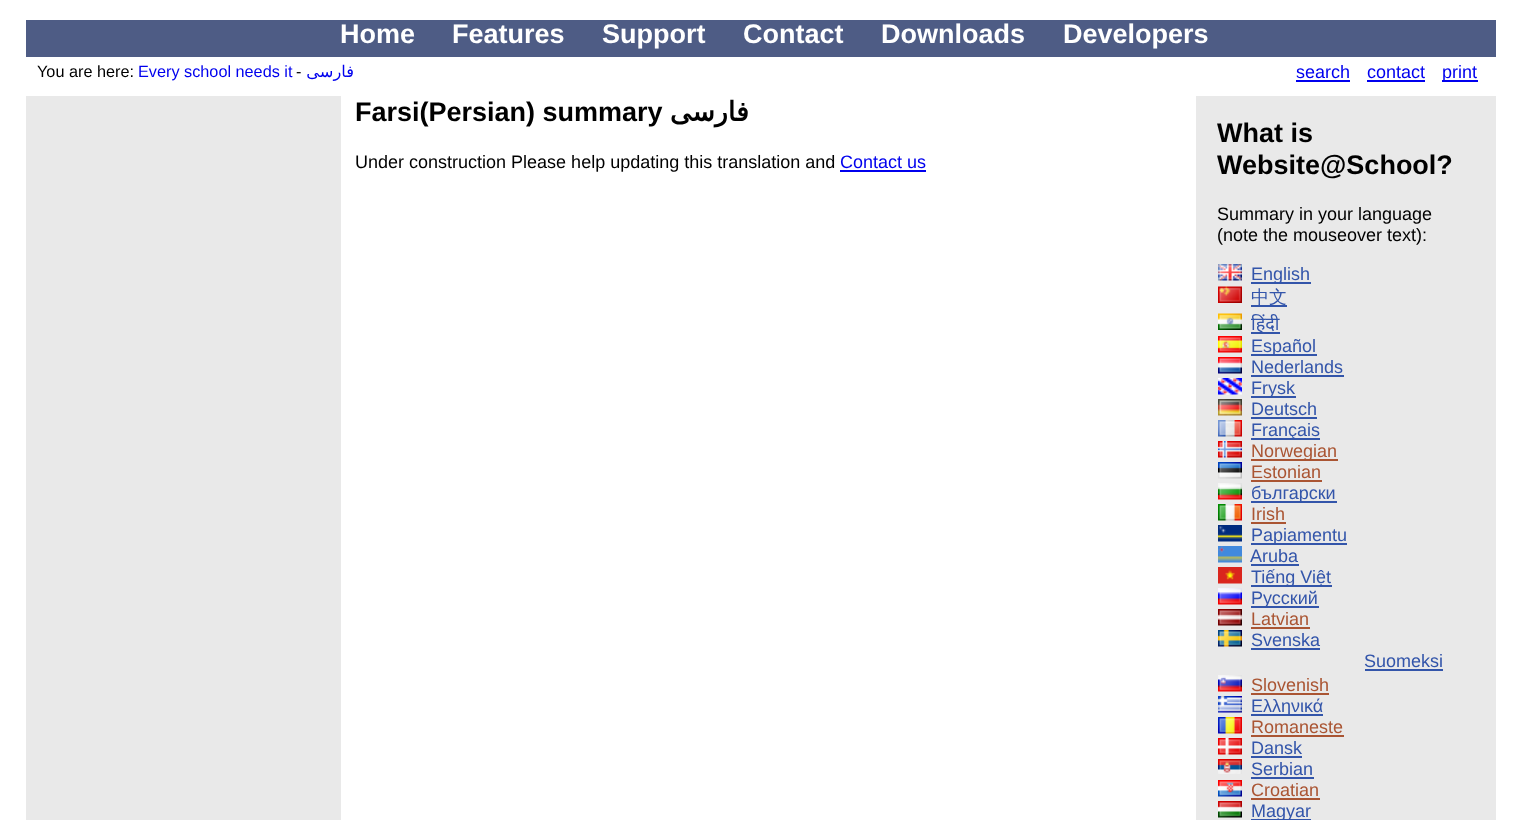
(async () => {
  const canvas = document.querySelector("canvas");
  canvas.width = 1519;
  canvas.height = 820;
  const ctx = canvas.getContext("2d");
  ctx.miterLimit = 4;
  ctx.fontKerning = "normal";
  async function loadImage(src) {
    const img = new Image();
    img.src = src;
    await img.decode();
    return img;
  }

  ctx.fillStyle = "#ffffff";
  ctx.fillRect(0, 0, 1519, 820);
  for (const [x, y, w, h, color] of [
    [26, 20, 1470, 37, "#4e5c85"],
    [1296, 80, 54, 2, "#0000ee"],
    [1367, 80, 58, 2, "#0000ee"],
    [1442, 80, 36, 2, "#0000ee"],
    [26, 96, 1470, 724, "#e9e9e9"],
    [341, 96, 855, 724, "#ffffff"],
    [840, 170, 86, 2, "#0000ee"],
  ]) {
    ctx.fillStyle = color;
    ctx.fillRect(x, y, w, h);
  }
  ctx.drawImage(await loadImage("img/1.png"), 1218, 264, 24, 17);
  ctx.fillStyle = "#3355aa";
  ctx.fillRect(1251, 282, 60, 2);
  ctx.drawImage(await loadImage("img/2.png"), 1218, 286, 24, 17);
  ctx.fillRect(1251, 305, 36, 2);
  ctx.drawImage(await loadImage("img/3.png"), 1218, 313, 24, 17);
  ctx.fillRect(1251, 332, 29, 2);
  ctx.drawImage(await loadImage("img/4.png"), 1218, 336, 24, 17);
  ctx.fillRect(1251, 354, 66, 2);
  ctx.drawImage(await loadImage("img/5.png"), 1218, 357, 24, 17);
  ctx.fillRect(1251, 375, 93, 2);
  ctx.drawImage(await loadImage("img/6.png"), 1218, 378, 24, 17);
  ctx.fillRect(1251, 396, 45, 2);
  ctx.drawImage(await loadImage("img/7.png"), 1218, 399, 24, 17);
  ctx.fillRect(1251, 417, 66, 2);
  ctx.drawImage(await loadImage("img/8.png"), 1218, 420, 24, 17);
  ctx.fillRect(1251, 438, 69, 2);
  ctx.drawImage(await loadImage("img/9.png"), 1218, 441, 24, 17);
  ctx.fillStyle = "#aa5533";
  ctx.fillRect(1251, 459, 87, 2);
  ctx.drawImage(await loadImage("img/10.png"), 1218, 462, 24, 17);
  ctx.fillRect(1251, 480, 71, 2);
  ctx.drawImage(await loadImage("img/11.png"), 1218, 483, 24, 17);
  ctx.fillStyle = "#3355aa";
  ctx.fillRect(1251, 501, 86, 2);
  ctx.drawImage(await loadImage("img/12.png"), 1218, 504, 24, 17);
  ctx.fillStyle = "#aa5533";
  ctx.fillRect(1251, 522, 35, 2);
  ctx.drawImage(await loadImage("img/13.png"), 1218, 525, 24, 17);
  ctx.fillStyle = "#3355aa";
  ctx.fillRect(1251, 543, 96, 2);
  ctx.drawImage(await loadImage("img/14.png"), 1218, 546, 24, 17);
  ctx.fillRect(1251, 564, 48, 2);
  ctx.drawImage(await loadImage("img/15.png"), 1218, 567, 24, 17);
  ctx.fillRect(1251, 585, 81, 2);
  ctx.drawImage(await loadImage("img/16.png"), 1218, 588, 24, 17);
  ctx.fillRect(1251, 606, 68, 2);
  ctx.drawImage(await loadImage("img/17.png"), 1218, 609, 24, 17);
  ctx.fillStyle = "#aa5533";
  ctx.fillRect(1251, 627, 59, 2);
  ctx.drawImage(await loadImage("img/18.png"), 1218, 630, 24, 17);
  ctx.fillStyle = "#3355aa";
  ctx.fillRect(1251, 648, 69, 2);
  ctx.fillRect(1365, 669, 78, 2);
  ctx.drawImage(await loadImage("img/19.png"), 1218, 675, 24, 17);
  ctx.fillStyle = "#aa5533";
  ctx.fillRect(1251, 693, 78, 2);
  ctx.drawImage(await loadImage("img/20.png"), 1218, 696, 24, 17);
  ctx.fillStyle = "#3355aa";
  ctx.fillRect(1251, 714, 72, 2);
  ctx.drawImage(await loadImage("img/21.png"), 1218, 717, 24, 17);
  ctx.fillStyle = "#aa5533";
  ctx.fillRect(1251, 735, 93, 2);
  ctx.drawImage(await loadImage("img/22.png"), 1218, 738, 24, 17);
  ctx.fillStyle = "#3355aa";
  ctx.fillRect(1251, 756, 51, 2);
  ctx.drawImage(await loadImage("img/23.png"), 1218, 759, 24, 15);
  ctx.fillRect(1251, 777, 63, 2);
  ctx.drawImage(await loadImage("img/24.png"), 1218, 780, 24, 17);
  ctx.fillStyle = "#aa5533";
  ctx.fillRect(1251, 798, 69, 2);
  ctx.drawImage(await loadImage("img/25.png"), 1218, 801, 24, 17);
  ctx.fillStyle = "#3355aa";
  ctx.fillRect(1251, 819, 60, 1);
  ctx.font = "bold 27px Liberation Sans";
  ctx.fillStyle = "#ffffff";
  for (const [text, x, y] of [
    ["Home", 340, 43],
    ["Features", 452, 43],
    ["Support", 602, 43],
    ["Contact", 743, 43],
    ["Downloads", 881, 43],
    ["Developers", 1063, 43],
  ]) {
    ctx.fillText(text, x, y);
  }
  ctx.font = "16.25px Liberation Sans";
  ctx.fillStyle = "#000000";
  ctx.fillText("You are here:", 37, 77);
  ctx.fillStyle = "#0000ee";
  ctx.fillText("Every school needs it", 138, 77);
  ctx.fillStyle = "#000000";
  ctx.fillText("-", 296, 77);
  ctx.direction = "rtl";
  ctx.font = "16.25px DejaVu Sans";
  ctx.fillStyle = "#0000ee";
  ctx.fillText("فارسی", 354, 77);
  ctx.direction = "ltr";
  ctx.font = "18px Liberation Sans";
  for (const [text, x, y] of [
    ["search", 1296, 78],
    ["contact", 1367, 78],
    ["print", 1442, 78],
  ]) {
    ctx.fillText(text, x, y);
  }
  ctx.font = "bold 27px Liberation Sans";
  ctx.fillStyle = "#000000";
  ctx.fillText("Farsi(Persian) summary", 355, 121);
  ctx.direction = "rtl";
  ctx.font = "bold 27px DejaVu Sans";
  ctx.fillText("فارسی", 749, 121);
  ctx.direction = "ltr";
  ctx.font = "18px Liberation Sans";
  ctx.fillText("Under construction Please help updating this translation and", 355, 168);
  ctx.fillStyle = "#0000ee";
  ctx.fillText("Contact us", 840, 168);
  ctx.font = "bold 27px Liberation Sans";
  ctx.fillStyle = "#000000";
  ctx.fillText("What is", 1217, 142);
  ctx.fillText("Website@School?", 1217, 174);
  ctx.font = "18px Liberation Sans";
  ctx.fillText("Summary in your language", 1217, 220);
  ctx.fillText("(note the mouseover text):", 1217, 241);
  ctx.fillStyle = "#3355aa";
  ctx.fillText("English", 1251, 280);
  ctx.font = "500 18px WenQuanYi Zen Hei";
  ctx.fillText("中文", 1251, 303);
  ctx.font = "18px Noto Sans";
  ctx.fillText("हिंदी", 1251, 330);
  ctx.font = "18px Liberation Sans";
  for (const [text, x, y] of [
    ["Español", 1251, 352],
    ["Nederlands", 1251, 373],
    ["Frysk", 1251, 394],
    ["Deutsch", 1251, 415],
    ["Français", 1251, 436],
  ]) {
    ctx.fillText(text, x, y);
  }
  ctx.fillStyle = "#aa5533";
  ctx.fillText("Norwegian", 1251, 457);
  ctx.fillText("Estonian", 1251, 478);
  ctx.fillStyle = "#3355aa";
  ctx.fillText("български", 1251, 499);
  ctx.fillStyle = "#aa5533";
  ctx.fillText("Irish", 1251, 520);
  ctx.fillStyle = "#3355aa";
  for (const [text, x, y] of [
    ["Papiamentu", 1251, 541],
    ["Aruba", 1250, 562],
    ["Tiếng Việt", 1251, 583],
    ["Русский", 1251, 604],
  ]) {
    ctx.fillText(text, x, y);
  }
  ctx.fillStyle = "#aa5533";
  ctx.fillText("Latvian", 1251, 625);
  ctx.fillStyle = "#3355aa";
  ctx.fillText("Svenska", 1251, 646);
  ctx.fillText("Suomeksi", 1364, 667);
  ctx.fillStyle = "#aa5533";
  ctx.fillText("Slovenish", 1251, 691);
  ctx.fillStyle = "#3355aa";
  ctx.fillText("Ελληνικά", 1251, 712);
  ctx.fillStyle = "#aa5533";
  ctx.fillText("Romaneste", 1251, 733);
  ctx.fillStyle = "#3355aa";
  ctx.fillText("Dansk", 1251, 754);
  ctx.fillText("Serbian", 1251, 775);
  ctx.fillStyle = "#aa5533";
  ctx.fillText("Croatian", 1251, 796);
  ctx.fillStyle = "#3355aa";
  ctx.fillText("Magyar", 1251, 817);
})();
